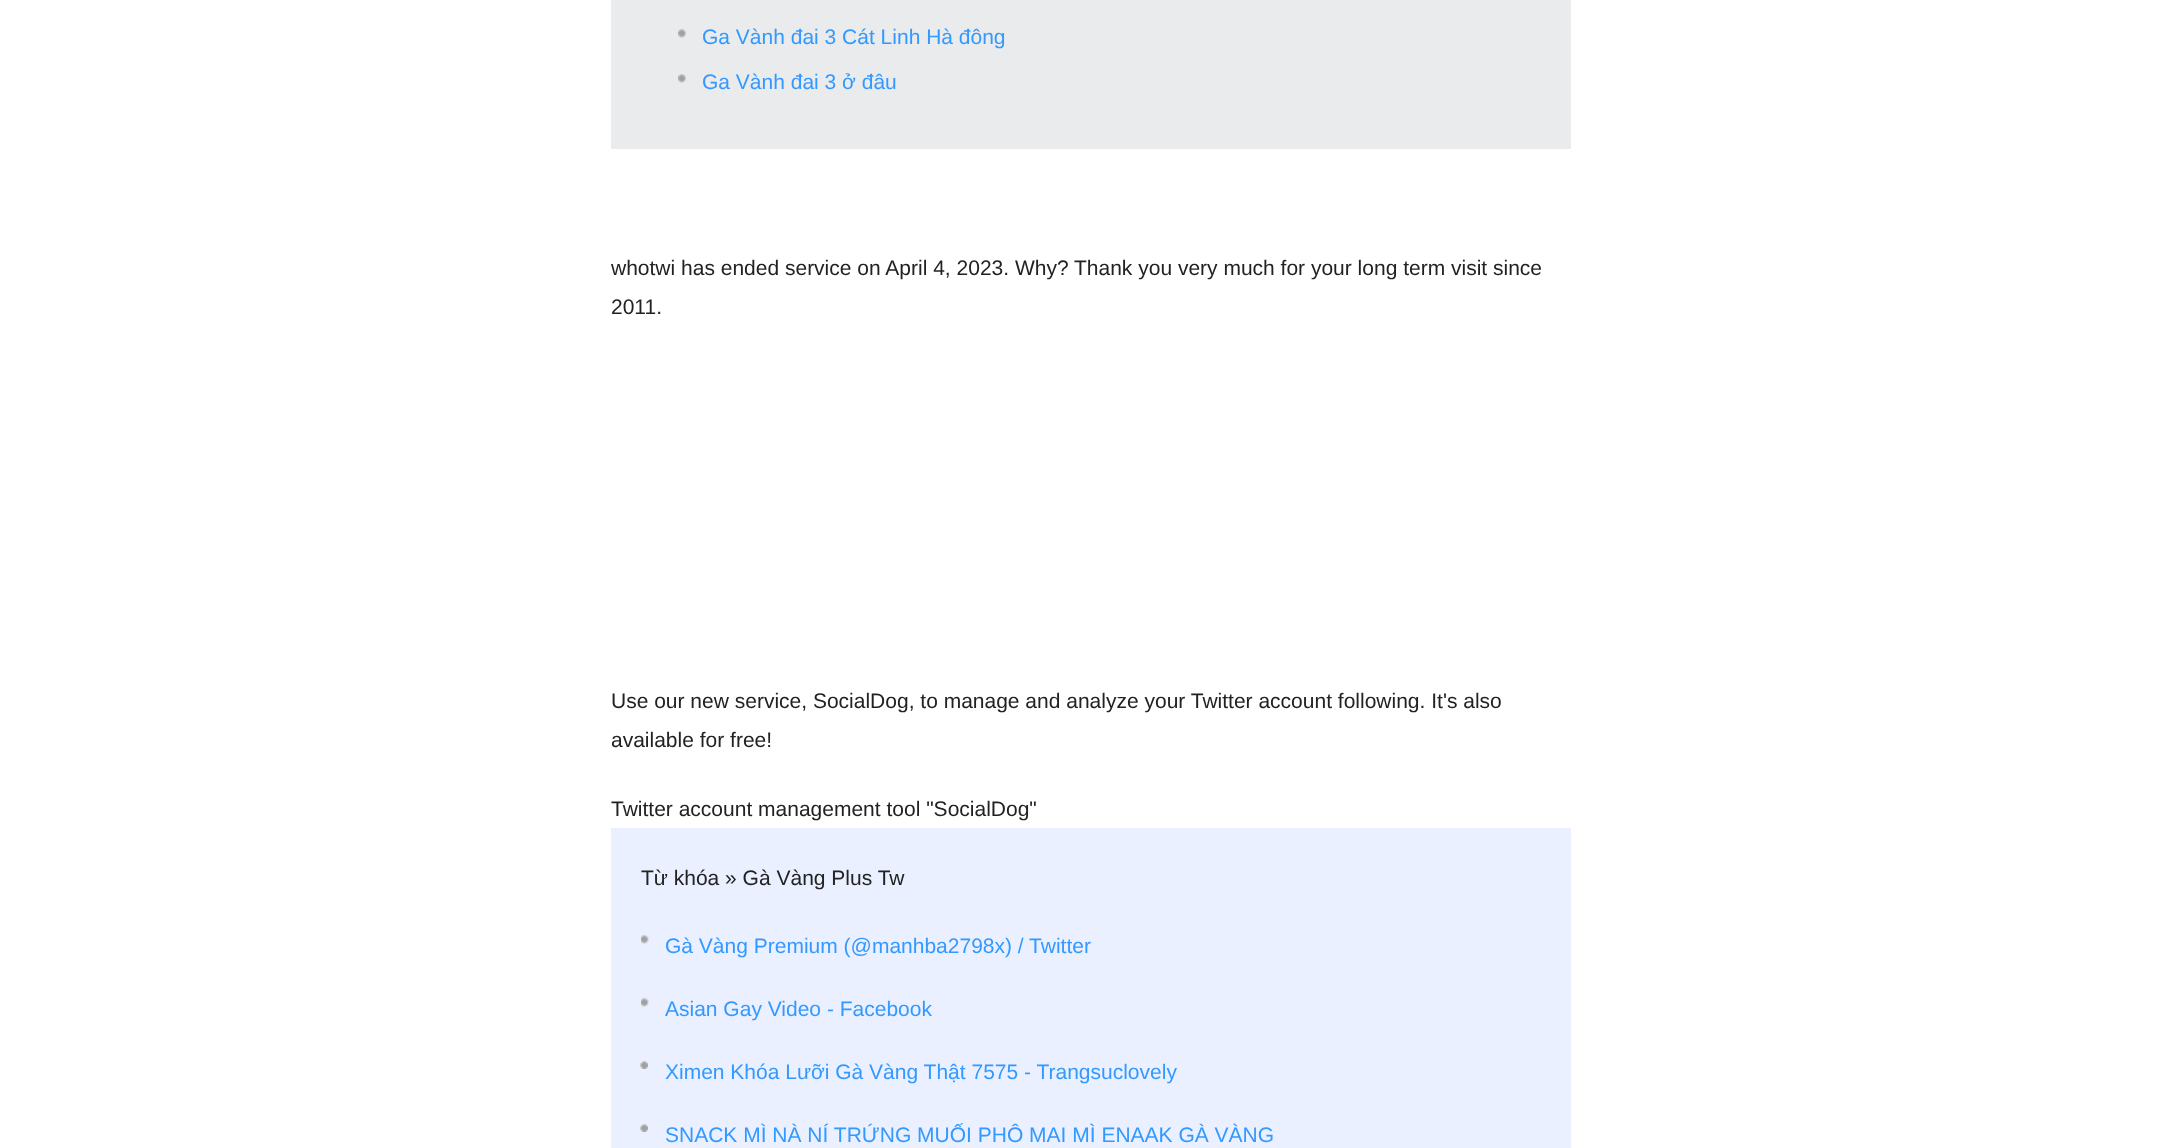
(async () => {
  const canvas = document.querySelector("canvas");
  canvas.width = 2180;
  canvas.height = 1148;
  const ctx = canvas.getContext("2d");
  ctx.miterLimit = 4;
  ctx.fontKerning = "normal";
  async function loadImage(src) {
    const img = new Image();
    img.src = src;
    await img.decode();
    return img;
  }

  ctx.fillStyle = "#ffffff";
  ctx.fillRect(0, 0, 2180, 1148);
  ctx.fillStyle = "#e9ebec";
  ctx.fillRect(611, 0, 960, 149);
  ctx.drawImage(await loadImage("img/1.png"), 678, 29, 8, 9);
  ctx.drawImage(await loadImage("img/1.png"), 678, 74, 8, 9);
  ctx.fillStyle = "#eaf0ff";
  ctx.fillRect(611, 828, 960, 320);
  ctx.drawImage(await loadImage("img/2.png"), 641, 934, 8, 10);
  ctx.drawImage(await loadImage("img/2.png"), 641, 997, 8, 10);
  ctx.drawImage(await loadImage("img/3.png"), 640, 1061, 8, 8);
  ctx.drawImage(await loadImage("img/3.png"), 640, 1124, 8, 8);
  ctx.font = "21px Liberation Sans";
  ctx.fillStyle = "#3399ff";
  ctx.fillText("Ga Vành đai 3 Cát Linh Hà đông", 702, 44);
  ctx.fillText("Ga Vành đai 3 ở đâu", 702, 89);
  ctx.fillStyle = "#222222";
  for (const [text, x, y] of [
    ["whotwi has ended service on April 4, 2023. Why?", 611, 275],
    ["Thank you very much for your long term visit since", 1074, 275],
    ["2011.", 611, 314],
    ["Use our new service, SocialDog, to manage and analyze your Twitter account following. It's also", 611, 708],
    ["available for free!", 611, 747],
    ["Twitter account management tool \"SocialDog\"", 611, 816],
    ["Từ khóa » Gà Vàng Plus Tw", 641, 885],
  ]) {
    ctx.fillText(text, x, y);
  }
  ctx.fillStyle = "#3399ff";
  for (const [text, x, y] of [
    ["Gà Vàng Premium (@manhba2798x) / Twitter", 665, 953],
    ["Asian Gay Video - Facebook", 665, 1016],
    ["Ximen Khóa Lưỡi Gà Vàng Thật 7575 - Trangsuclovely", 665, 1079],
    ["SNACK MÌ NÀ NÍ TRỨNG MUỐI PHÔ MAI MÌ ENAAK GÀ VÀNG", 665, 1142],
  ]) {
    ctx.fillText(text, x, y);
  }
})();
